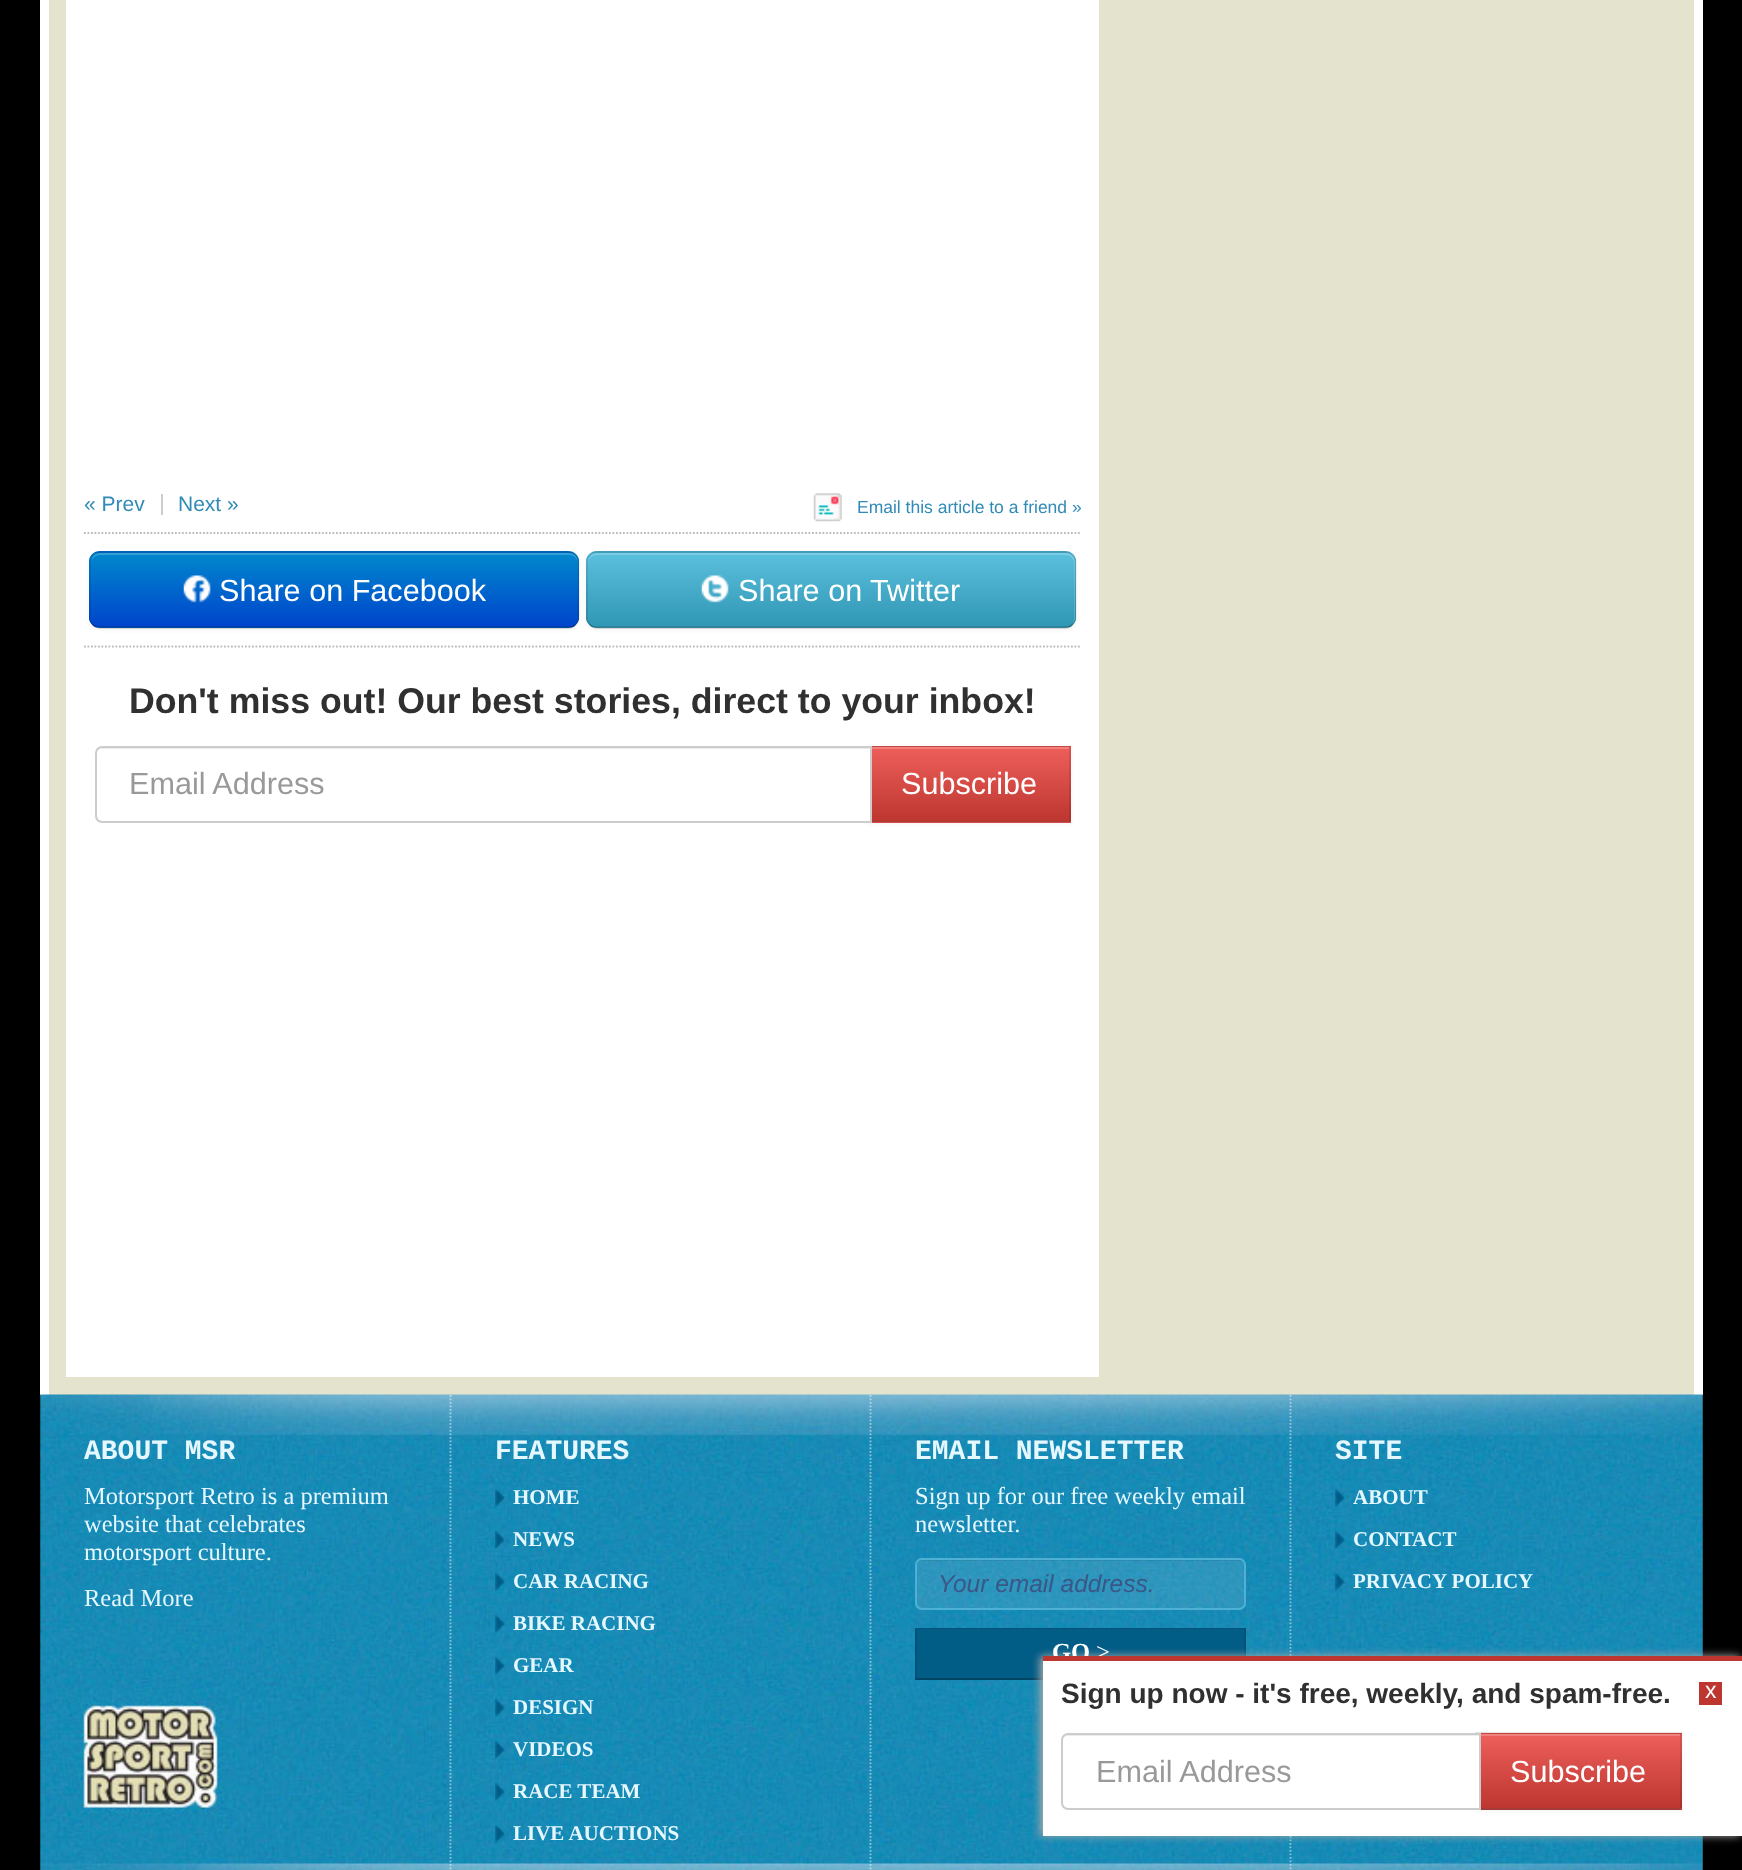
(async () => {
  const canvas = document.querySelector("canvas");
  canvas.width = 1742;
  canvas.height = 1870;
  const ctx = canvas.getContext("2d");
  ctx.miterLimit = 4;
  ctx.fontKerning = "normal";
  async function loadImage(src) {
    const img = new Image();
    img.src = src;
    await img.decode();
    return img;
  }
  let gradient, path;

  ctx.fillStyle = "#000000";
  ctx.fillRect(0, 0, 1742, 1870);
  for (const [x, y, w, h, color] of [
    [49, 0, 1645, 1395, "#e4e3ce"],
    [1694, 0, 9, 1395, "#ffffff"],
    [40, 0, 9, 1395, "#ffffff"],
    [66, 0, 1033, 1377, "#ffffff"],
  ]) {
    ctx.fillStyle = color;
    ctx.fillRect(x, y, w, h);
  }
  path = new Path2D("M84 533H1081.5");
  ctx.strokeStyle = "#bbbbbb";
  ctx.lineWidth = 1.8;
  ctx.setLineDash([1.75, 1.75]);
  ctx.stroke(path);
  ctx.fillStyle = "#cccccc";
  ctx.fillRect(161, 494, 2, 21);
  ctx.drawImage(await loadImage("img/1.png"), 813, 493, 29, 29);
  path = new Path2D("M84 646.5H1081.5");
  ctx.stroke(path);
  ctx.fillStyle = "rgba(0, 0, 0, 0.05)";
  ctx.filter = "blur(2px)";
  ctx.beginPath();
  ctx.roundRect(89, 553, 490, 77, 11);
  ctx.fill();
  ctx.filter = "none";
  ctx.fillStyle = "#006dcc";
  ctx.beginPath();
  ctx.roundRect(89, 551, 490, 77, 11);
  ctx.fill();
  ctx.save();
  ctx.beginPath();
  ctx.roundRect(89, 551, 490, 77, 11);
  ctx.clip();
  gradient = ctx.createLinearGradient(334, 553, 334, 627);
  gradient.addColorStop(0, "#0088cc");
  gradient.addColorStop(1, "#0044cc");
  ctx.fillStyle = gradient;
  ctx.fillRect(89, 553, 490, 74);
  ctx.restore();
  ctx.fillStyle = "rgba(255, 255, 255, 0.2)";
  path = new Path2D("M100 555H569C574 555 578 559 578 564C578 558 575 553 569 553H100C94 553 91 558 91 564C91 559 95 555 100 555Z");
  ctx.fill(path);
  path = new Path2D("M575.5 624.5C574 626.5 571.5 627.5 569 627.5H100C97 627.5 94.5 626.5 93 624.5");
  ctx.strokeStyle = "rgba(0, 0, 0, 0.25)";
  ctx.setLineDash([]);
  ctx.stroke(path);
  path = new Path2D("M93 624.5C91 623 90 620.5 90 618V562C90 559 91 556.5 93 555C94.5 553 97 552 100 552H569C571.5 552 574 553 575.5 555C577.5 556.5 578.5 559 578.5 562V618C578.5 620.5 577.5 623 575.5 624.5");
  ctx.strokeStyle = "rgba(0, 0, 0, 0.1)";
  ctx.stroke(path);
  ctx.drawImage(await loadImage("img/2.png"), 183, 575, 28, 28);
  ctx.fillStyle = "rgba(0, 0, 0, 0.05)";
  ctx.filter = "blur(2px)";
  ctx.beginPath();
  ctx.roundRect(586, 553, 490, 77, 11);
  ctx.fill();
  ctx.filter = "none";
  ctx.fillStyle = "#49afcd";
  ctx.beginPath();
  ctx.roundRect(586, 551, 490, 77, 11);
  ctx.fill();
  ctx.save();
  ctx.beginPath();
  ctx.roundRect(586, 551, 490, 77, 11);
  ctx.clip();
  gradient = ctx.createLinearGradient(831, 553, 831, 627);
  gradient.addColorStop(0, "#5bc0de");
  gradient.addColorStop(1, "#2f96b4");
  ctx.fillStyle = gradient;
  ctx.fillRect(586, 553, 490, 74);
  ctx.restore();
  ctx.fillStyle = "rgba(255, 255, 255, 0.2)";
  path = new Path2D("M597 555H1066C1071 555 1074 559 1074 564V620L1073 623C1074 622 1075 620 1075 618V562C1075 557 1071 553 1066 553H597C592 553 588 557 588 562V564C588 559 592 555 597 555Z");
  ctx.fill(path);
  path = new Path2D("M1072.5 624.5C1071 626.5 1068.5 627.5 1066 627.5H597C594 627.5 591.5 626.5 590 624.5");
  ctx.strokeStyle = "rgba(0, 0, 0, 0.25)";
  ctx.stroke(path);
  path = new Path2D("M590 624.5C588 623 587 620.5 587 618V562C587 559 588 556.5 590 555C591.5 553 594 552 597 552H1066C1068.5 552 1071 553 1072.5 555C1074.5 556.5 1075.5 559 1075.5 562V618C1075.5 620.5 1074.5 623 1072.5 624.5");
  ctx.strokeStyle = "rgba(0, 0, 0, 0.1)";
  ctx.stroke(path);
  ctx.drawImage(await loadImage("img/3.png"), 701, 575, 28, 28);
  ctx.fillStyle = "rgba(0, 0, 0, 0.05)";
  ctx.filter = "blur(2px)";
  ctx.beginPath();
  ctx.rect(866, 747, 205, 77);
  ctx.fill();
  ctx.filter = "none";
  ctx.fillStyle = "#da4f49";
  ctx.fillRect(872, 746, 199, 77);
  gradient = ctx.createLinearGradient(969, 747, 969, 821);
  gradient.addColorStop(0, "#ee5f5b");
  gradient.addColorStop(1, "#bd362f");
  ctx.fillStyle = gradient;
  ctx.fillRect(872, 747, 199, 74);
  ctx.fillStyle = "#f17f7b";
  ctx.fillRect(868, 747, 201, 2);
  ctx.fillStyle = "#c44742";
  path = new Path2D("M866 746H1071L1069 747H868Z");
  ctx.fill(path);
  ctx.fillStyle = "rgba(0, 0, 0, 0.1)";
  path = new Path2D("M1071 746V822L1069 821V747Z");
  ctx.fill(path);
  ctx.fillStyle = "rgba(0, 0, 0, 0.25)";
  path = new Path2D("M1071 822H866L868 821H1069Z");
  ctx.fill(path);
  ctx.fillStyle = "#ffffff";
  ctx.beginPath();
  ctx.roundRect(95, 746, 777, 77, [7, 0, 0, 7]);
  ctx.fill();
  ctx.fillStyle = "#ececec";
  path = new Path2D("M102 749H870V747H101C97 747 96 751 96 754C96 751 99 749 102 749Z");
  ctx.fill(path);
  ctx.beginPath();
  ctx.roundRect(96, 747, 775, 75, [6, 0, 0, 6]);
  ctx.strokeStyle = "#cccccc";
  ctx.lineWidth = 2;
  ctx.stroke();
  ctx.drawImage(await loadImage("img/4.png"), 40, 1394, 1663, 476);
  path = new Path2D("M450.5 1395V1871");
  ctx.strokeStyle = "rgba(255, 255, 255, 0.5)";
  ctx.lineWidth = 1.8;
  ctx.setLineDash([1.75, 1.75]);
  ctx.stroke(path);
  path = new Path2D("M870.5 1395V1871");
  ctx.stroke(path);
  ctx.drawImage(await loadImage("img/5.png"), 495, 1489, 10, 18);
  ctx.drawImage(await loadImage("img/6.png"), 495, 1531, 10, 18);
  ctx.drawImage(await loadImage("img/7.png"), 495, 1573, 10, 18);
  ctx.drawImage(await loadImage("img/8.png"), 495, 1615, 10, 18);
  ctx.drawImage(await loadImage("img/9.png"), 495, 1657, 10, 18);
  ctx.drawImage(await loadImage("img/10.png"), 495, 1699, 10, 18);
  ctx.drawImage(await loadImage("img/11.png"), 495, 1741, 10, 18);
  ctx.drawImage(await loadImage("img/12.png"), 495, 1783, 10, 18);
  ctx.drawImage(await loadImage("img/13.png"), 495, 1825, 10, 18);
  path = new Path2D("M1290.5 1395V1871");
  ctx.stroke(path);
  ctx.fillStyle = "rgba(255, 255, 255, 0.1)";
  ctx.beginPath();
  ctx.roundRect(915, 1558, 331, 52, 7);
  ctx.fill();
  ctx.fillStyle = "rgba(0, 0, 0, 0.07)";
  path = new Path2D("M922 1561H1239C1242 1561 1244 1563 1244 1566V1564C1244 1561 1242 1559 1239 1559H922C919 1559 917 1561 917 1564V1566C917 1563 919 1561 922 1561Z");
  ctx.fill(path);
  ctx.beginPath();
  ctx.roundRect(916, 1559, 329, 50, 6);
  ctx.strokeStyle = "#4fb0d5";
  ctx.lineWidth = 2;
  ctx.setLineDash([]);
  ctx.stroke();
  ctx.fillStyle = "#015c86";
  ctx.fillRect(915, 1628, 331, 52);
  ctx.fillStyle = "#015379";
  path = new Path2D("M915 1628H1246L1244 1629H917Z");
  ctx.fill(path);
  ctx.fillStyle = "rgba(0, 0, 0, 0.1)";
  path = new Path2D("M1246 1628V1680L1244 1678V1629Z");
  ctx.fill(path);
  ctx.fillStyle = "rgba(0, 0, 0, 0.25)";
  path = new Path2D("M1246 1680H915L917 1678H1244Z");
  ctx.fill(path);
  ctx.fillStyle = "rgba(0, 0, 0, 0.1)";
  path = new Path2D("M915 1680V1628L917 1629V1678Z");
  ctx.fill(path);
  ctx.drawImage(await loadImage("img/14.png"), 1335, 1489, 10, 18);
  ctx.drawImage(await loadImage("img/15.png"), 1335, 1531, 10, 18);
  ctx.drawImage(await loadImage("img/16.png"), 1335, 1573, 10, 18);
  ctx.fillStyle = "#aaaaaa";
  ctx.filter = "blur(4.5px)";
  ctx.beginPath();
  ctx.rect(1040, 1656, 700, 180);
  ctx.fill();
  ctx.filter = "none";
  ctx.fillStyle = "#ffffff";
  ctx.fillRect(1043, 1661, 699, 175);
  ctx.fillStyle = "rgba(0, 0, 0, 0.05)";
  ctx.filter = "blur(2px)";
  ctx.beginPath();
  ctx.rect(1475, 1734, 207, 77);
  ctx.fill();
  ctx.filter = "none";
  ctx.fillStyle = "#da4f49";
  ctx.fillRect(1481, 1733, 201, 77);
  gradient = ctx.createLinearGradient(1579, 1734, 1579, 1808);
  gradient.addColorStop(0, "#ee5f5b");
  gradient.addColorStop(1, "#bd362f");
  ctx.fillStyle = gradient;
  ctx.fillRect(1481, 1734, 201, 74);
  ctx.fillStyle = "#f17f7b";
  ctx.fillRect(1477, 1734, 203, 2);
  ctx.fillStyle = "rgba(0, 0, 0, 0.1)";
  path = new Path2D("M1475 1732H1682L1680 1734H1477Z");
  ctx.fill(path);
  path = new Path2D("M1682 1732V1810L1680 1808V1734Z");
  ctx.fill(path);
  ctx.fillStyle = "rgba(0, 0, 0, 0.25)";
  path = new Path2D("M1682 1810H1475L1477 1808H1680Z");
  ctx.fill(path);
  ctx.fillStyle = "rgba(0, 0, 0, 0.1)";
  path = new Path2D("M1475 1810V1732L1477 1734V1808Z");
  ctx.fill(path);
  ctx.fillStyle = "#ffffff";
  ctx.beginPath();
  ctx.roundRect(1061, 1733, 420, 77, [7, 0, 0, 7]);
  ctx.fill();
  ctx.fillStyle = "#ececec";
  path = new Path2D("M1068 1736H1479V1734H1067C1063 1734 1062 1738 1062 1741C1062 1738 1065 1736 1068 1736Z");
  ctx.fill(path);
  ctx.beginPath();
  ctx.roundRect(1062, 1734, 418, 75, [6, 0, 0, 6]);
  ctx.strokeStyle = "#cccccc";
  ctx.stroke();
  ctx.fillStyle = "#bd362f";
  ctx.fillRect(1699, 1682, 23, 23);
  ctx.font = "21px Liberation Sans";
  ctx.fillStyle = "#308bb6";
  ctx.fillText("« Prev", 84, 511);
  ctx.fillText("Next »", 178, 511);
  ctx.font = "17.5px Liberation Sans";
  ctx.fillText("Email this article to a friend »", 857, 513);
  ctx.font = "30.6px Liberation Sans";
  ctx.fillStyle = "#ffffff";
  ctx.fillText("Share on Facebook", 219, 601);
  ctx.fillText("Share on Twitter", 738, 601);
  ctx.font = "bold 35.7px Liberation Sans";
  ctx.fillStyle = "#303030";
  ctx.fillText("Don't miss out! Our best stories, direct to your inbox!", 129, 713);
  ctx.font = "30.6px Liberation Sans";
  ctx.fillStyle = "#999999";
  ctx.fillText("Email Address", 129, 794);
  ctx.fillStyle = "#ffffff";
  ctx.fillText("Subscribe", 901, 794);
  ctx.font = "bold 28px Liberation Mono";
  ctx.fillStyle = "#e5f8ff";
  ctx.fillText("ABOUT MSR", 84, 1459);
  ctx.font = "24.5px Liberation Serif";
  for (const [text, x, y] of [
    ["Motorsport Retro is a premium", 84, 1504],
    ["website that celebrates", 84, 1532],
    ["motorsport culture.", 84, 1560],
    ["Read More", 84, 1606],
  ]) {
    ctx.fillText(text, x, y);
  }
  ctx.font = "bold 28px Liberation Mono";
  ctx.fillText("FEATURES", 495, 1459);
  ctx.font = "bold 21px Liberation Serif";
  for (const [text, x, y] of [
    ["HOME", 513, 1504],
    ["NEWS", 513, 1546],
    ["CAR RACING", 513, 1588],
    ["BIKE RACING", 513, 1630],
    ["GEAR", 513, 1672],
    ["DESIGN", 513, 1714],
    ["VIDEOS", 513, 1756],
    ["RACE TEAM", 513, 1798],
    ["LIVE AUCTIONS", 513, 1840],
  ]) {
    ctx.fillText(text, x, y);
  }
  ctx.font = "bold 28px Liberation Mono";
  ctx.fillText("EMAIL NEWSLETTER", 915, 1459);
  ctx.font = "24.5px Liberation Serif";
  ctx.fillText("Sign up for our free weekly email", 915, 1504);
  ctx.fillText("newsletter.", 915, 1532);
  ctx.font = "italic 24.5px Liberation Sans";
  ctx.fillStyle = "#395787";
  ctx.fillText("Your email address.", 938, 1592);
  ctx.font = "bold 24.5px Liberation Serif";
  ctx.fillStyle = "#ffffff";
  ctx.fillText("GO", 1052, 1660);
  ctx.font = "24.5px Liberation Serif";
  ctx.fillText(">", 1096, 1660);
  ctx.font = "bold 28px Liberation Mono";
  ctx.fillStyle = "#e5f8ff";
  ctx.fillText("SITE", 1335, 1459);
  ctx.font = "bold 21px Liberation Serif";
  for (const [text, x, y] of [
    ["ABOUT", 1353, 1504],
    ["CONTACT", 1353, 1546],
    ["PRIVACY POLICY", 1353, 1588],
  ]) {
    ctx.fillText(text, x, y);
  }
  ctx.fillStyle = "#bd362f";
  ctx.fillRect(1043, 1656, 699, 5);
  ctx.font = "bold 28px Liberation Sans";
  ctx.fillStyle = "#303030";
  ctx.fillText("Sign up now - it's free, weekly, and spam-free.", 1061, 1703);
  ctx.font = "30.6px Liberation Sans";
  ctx.fillStyle = "#999999";
  ctx.fillText("Email Address", 1096, 1782);
  ctx.fillStyle = "#ffffff";
  ctx.fillText("Subscribe", 1510, 1782);
  ctx.font = "23px Liberation Sans";
  ctx.fillText("x", 1705, 1698);
})();
